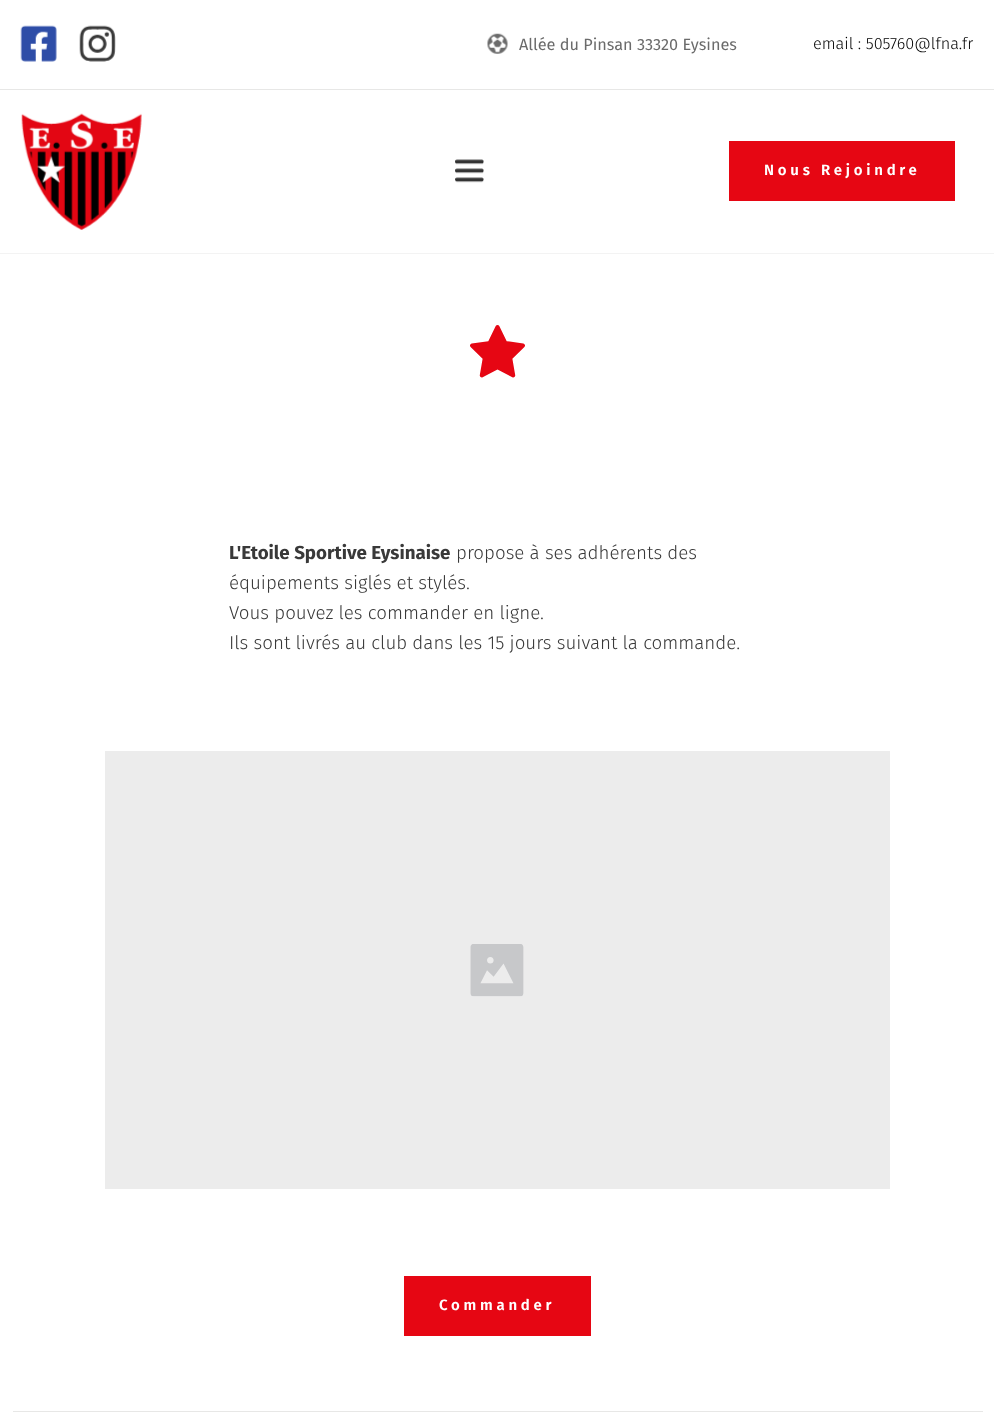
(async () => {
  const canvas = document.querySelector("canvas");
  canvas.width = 994;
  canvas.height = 1418;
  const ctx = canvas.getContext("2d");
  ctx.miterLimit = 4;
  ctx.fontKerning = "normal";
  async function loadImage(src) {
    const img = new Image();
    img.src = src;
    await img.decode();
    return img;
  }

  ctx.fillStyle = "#ffffff";
  ctx.fillRect(0, 0, 994, 1418);
  ctx.drawImage(await loadImage("img/1.png"), 20, 25, 37, 37);
  ctx.drawImage(await loadImage("img/2.png"), 79, 25, 37, 37);
  ctx.drawImage(await loadImage("img/3.png"), 487, 33, 21, 21);
  ctx.fillStyle = "#e7e7e6";
  ctx.fillRect(0, 89, 994, 1);
  ctx.drawImage(await loadImage("img/4.png"), 21, 113, 121, 117);
  ctx.drawImage(await loadImage("img/5.png"), 455, 159, 29, 24);
  ctx.fillStyle = "#e60613";
  ctx.fillRect(729, 141, 226, 60);
  ctx.fillStyle = "#f3f3f3";
  ctx.fillRect(0, 253, 994, 1);
  ctx.drawImage(await loadImage("img/6.png"), 470, 325, 55, 53);
  ctx.fillStyle = "#ececec";
  ctx.fillRect(105, 751, 785, 438);
  ctx.drawImage(await loadImage("img/7.png"), 470, 944, 54, 53);
  ctx.fillStyle = "#e60613";
  ctx.fillRect(404, 1276, 187, 60);
  ctx.fillStyle = "#e7e7e6";
  ctx.fillRect(13, 1411, 970, 1);
  ctx.font = "16.25px Fira Sans";
  ctx.fillStyle = "#6b6b6b";
  ctx.fillText("Allée du Pinsan 33320 Eysines", 519, 50);
  ctx.font = "300 16.25px Fira Sans";
  ctx.fillStyle = "#000000";
  ctx.fillText("email : 505760@lfna.fr", 813, 49);
  ctx.letterSpacing = "3.75px";
  ctx.font = "600 15px Fira Sans";
  ctx.fillStyle = "#ffffff";
  ctx.fillText("Nous Rejoindre", 764, 175);
  ctx.letterSpacing = "0px";
  ctx.font = "bold 18.75px Fira Sans";
  ctx.fillStyle = "#393939";
  ctx.fillText("L'Etoile Sportive Eysinaise", 229, 559);
  ctx.font = "300 18.75px Fira Sans";
  for (const [text, x, y] of [
    ["propose à ses adhérents des", 456, 559],
    ["équipements siglés et stylés.", 229, 589],
    ["Vous pouvez les commander en ligne.", 229, 619],
    ["Ils sont livrés au club dans les 15 jours suivant la commande.", 229, 649],
  ]) {
    ctx.fillText(text, x, y);
  }
  ctx.letterSpacing = "3.75px";
  ctx.font = "600 15px Fira Sans";
  ctx.fillStyle = "#ffffff";
  ctx.fillText("Commander", 439, 1310);
})();
